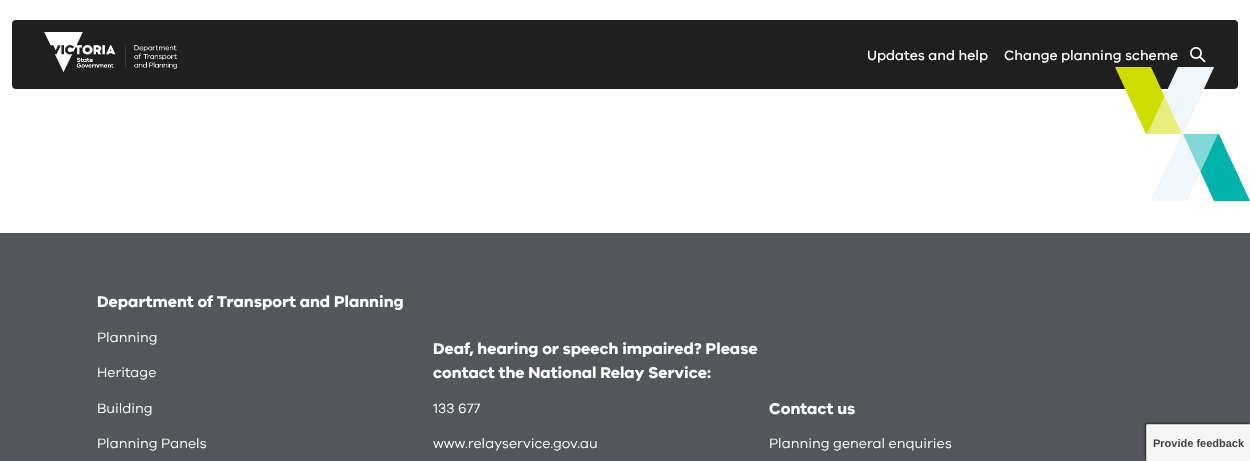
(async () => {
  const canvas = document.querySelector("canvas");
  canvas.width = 1250;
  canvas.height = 461;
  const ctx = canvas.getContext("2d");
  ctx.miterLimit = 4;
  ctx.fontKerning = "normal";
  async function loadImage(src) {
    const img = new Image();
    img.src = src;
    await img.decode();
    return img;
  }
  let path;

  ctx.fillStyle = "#ffffff";
  ctx.fillRect(0, 0, 1250, 461);
  ctx.fillStyle = "#1f1f1f";
  ctx.beginPath();
  ctx.roundRect(12, 20, 1226, 69, 4);
  ctx.fill();
  ctx.drawImage(await loadImage("img/1.png"), 44, 32, 133, 40);
  ctx.drawImage(await loadImage("img/2.png"), 1190, 47, 16, 16);
  ctx.fillStyle = "#e1eef9";
  path = new Path2D("M1151 201L1182 134H1218L1187 201Z");
  ctx.fill(path);
  ctx.fillStyle = "#00b2a9";
  path = new Path2D("M1250 201L1219 134H1183L1214 201Z");
  ctx.fill(path);
  ctx.fillStyle = "rgba(255, 255, 255, 0.5)";
  path = new Path2D("M1151 201L1182 134H1218L1187 201Z");
  ctx.fill(path);
  ctx.fillStyle = "#e1eef9";
  path = new Path2D("M1214 67L1183 134H1147L1178 67Z");
  ctx.fill(path);
  ctx.fillStyle = "#cedc00";
  path = new Path2D("M1115 67L1146 134H1182L1151 67Z");
  ctx.fill(path);
  ctx.fillStyle = "rgba(255, 255, 255, 0.5)";
  path = new Path2D("M1214 67L1183 134H1147L1178 67Z");
  ctx.fill(path);
  ctx.fillStyle = "#53565a";
  ctx.fillRect(0, 233, 1250, 228);
  ctx.fillStyle = "rgba(0, 0, 0, 0.5)";
  ctx.filter = "blur(1px)";
  ctx.beginPath();
  ctx.roundRect(1145, 423, 104, 37, 2);
  ctx.fill();
  ctx.filter = "none";
  ctx.fillStyle = "#f5f5f5";
  ctx.beginPath();
  ctx.roundRect(1146, 424, 104, 37, [2, 0, 0, 0]);
  ctx.fill();
  ctx.fillStyle = "#cccccc";
  ctx.fillRect(1147, 424, 103, 1);
  ctx.fillRect(1146, 425, 1, 36);
  ctx.font = "500 14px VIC";
  ctx.fillStyle = "#ffffff";
  ctx.fillText("Updates and help", 867, 60);
  ctx.fillText("Change planning scheme", 1004, 60);
  ctx.font = "bold 16px VIC";
  ctx.fillText("Department of Transport and Planning", 97, 307);
  ctx.font = "14px VIC";
  for (const [text, x, y] of [
    ["Planning", 97, 342],
    ["Heritage", 97, 377],
    ["Building", 97, 413],
    ["Planning Panels", 97, 448],
  ]) {
    ctx.fillText(text, x, y);
  }
  ctx.font = "bold 16px VIC";
  ctx.fillText("Deaf, hearing or speech impaired? Please", 433, 354);
  ctx.fillText("contact the National Relay Service:", 433, 378);
  ctx.font = "14px VIC";
  ctx.fillText("133 677", 433, 413);
  ctx.fillText("www.relayservice.gov.au", 433, 448);
  ctx.font = "bold 16px VIC";
  ctx.fillText("Contact us", 769, 414);
  ctx.font = "14px VIC";
  ctx.fillText("Planning general enquiries", 769, 448);
  ctx.font = "bold 11px Liberation Sans";
  ctx.fillStyle = "#444444";
  ctx.fillText("Provide feedback", 1153, 447);
})();
